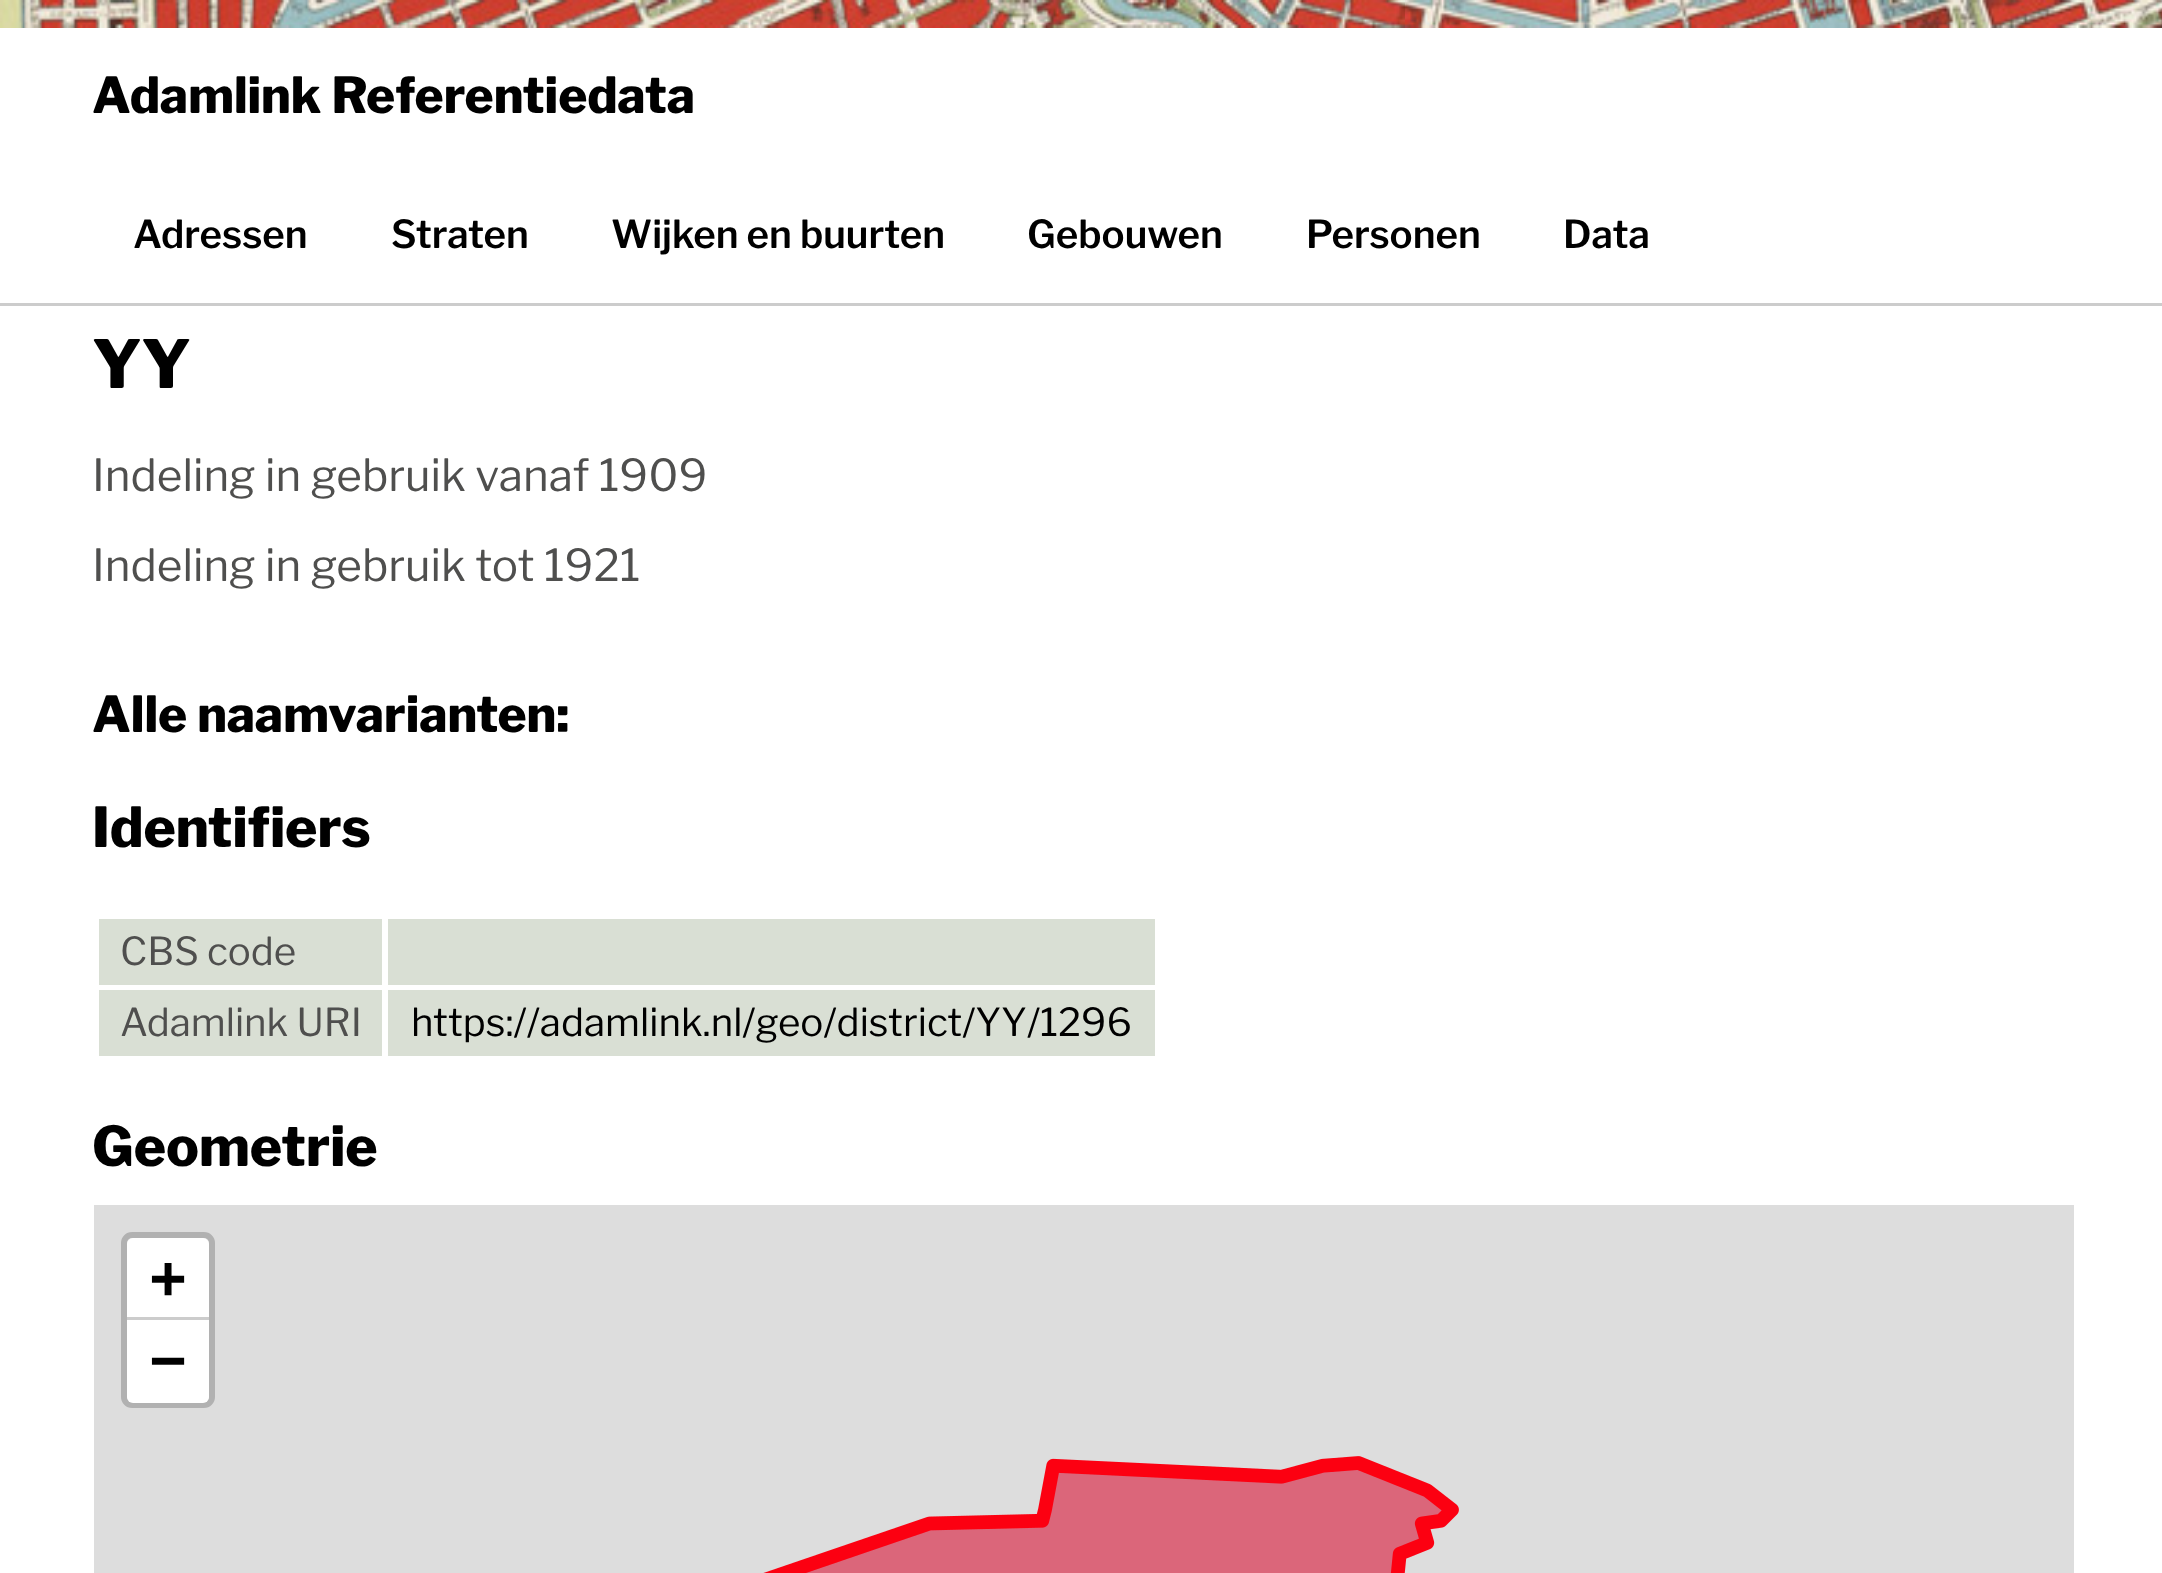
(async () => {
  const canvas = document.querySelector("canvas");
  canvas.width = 2162;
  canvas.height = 1573;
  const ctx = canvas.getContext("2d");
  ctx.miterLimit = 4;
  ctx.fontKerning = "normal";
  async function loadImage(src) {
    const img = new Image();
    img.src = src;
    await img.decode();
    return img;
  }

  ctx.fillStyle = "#ffffff";
  ctx.fillRect(0, 0, 2162, 1573);
  ctx.fillStyle = "#cccccc";
  ctx.fillRect(0, 303, 2162, 3);
  ctx.drawImage(await loadImage("img/1.png"), 0, 0, 2162, 28);
  for (const [x, y, w, h, color] of [
    [99, 919, 283, 66, "#d9dfd4"],
    [388, 919, 767, 66, "#d9dfd4"],
    [99, 990, 283, 66, "#d9dfd4"],
    [388, 990, 767, 66, "#d9dfd4"],
    [94, 1205, 1980, 368, "#dddddd"],
  ]) {
    ctx.fillStyle = color;
    ctx.fillRect(x, y, w, h);
  }
  ctx.beginPath();
  ctx.roundRect(124, 1235, 88, 170, 8);
  ctx.strokeStyle = "#b1b1b1";
  ctx.lineWidth = 6;
  ctx.stroke();
  ctx.fillStyle = "#ffffff";
  ctx.beginPath();
  ctx.roundRect(127, 1238, 82, 82, [6, 6, 0, 0]);
  ctx.fill();
  ctx.fillStyle = "#cccccc";
  ctx.fillRect(127, 1317, 82, 3);
  ctx.fillStyle = "#ffffff";
  ctx.beginPath();
  ctx.roundRect(127, 1320, 82, 83, [0, 0, 6, 6]);
  ctx.fill();
  ctx.drawImage(await loadImage("img/2.png"), 763, 1456, 696, 117);
  ctx.font = "800 49.5px Libre Franklin";
  ctx.fillStyle = "#000000";
  ctx.fillText("Adamlink Referentiedata", 92, 113);
  ctx.font = "600 38.5px Libre Franklin";
  for (const [text, x, y] of [
    ["Adressen", 133, 248],
    ["Straten", 391, 248],
    ["Wijken en buurten", 611, 248],
    ["Gebouwen", 1027, 248],
    ["Personen", 1306, 248],
    ["Data", 1563, 248],
  ]) {
    ctx.fillText(text, x, y);
  }
  ctx.font = "800 66px Libre Franklin";
  ctx.fillText("YY", 92, 388);
  ctx.font = "44px Libre Franklin";
  ctx.fillStyle = "#4f4f4e";
  ctx.fillText("Indeling in gebruik vanaf 1909", 92, 491);
  ctx.fillText("Indeling in gebruik tot 1921", 92, 581);
  ctx.font = "800 49.5px Libre Franklin";
  ctx.fillStyle = "#000000";
  ctx.fillText("Alle naamvarianten:", 92, 732);
  ctx.font = "800 55px Libre Franklin";
  ctx.fillText("Identifiers", 92, 847);
  ctx.font = "38.5px Libre Franklin";
  ctx.fillStyle = "#4f4f4e";
  ctx.fillText("CBS code", 120, 965);
  ctx.fillText("Adamlink URI", 120, 1036);
  ctx.fillStyle = "#000000";
  ctx.fillText("https://adamlink.nl/geo/district/YY/1296", 411, 1036);
  ctx.font = "800 55px Libre Franklin";
  ctx.fillText("Geometrie", 92, 1166);
  ctx.font = "bold 60px DejaVu Sans Mono";
  ctx.fillText("+", 150, 1298);
  ctx.fillText("−", 150, 1380);
})();
